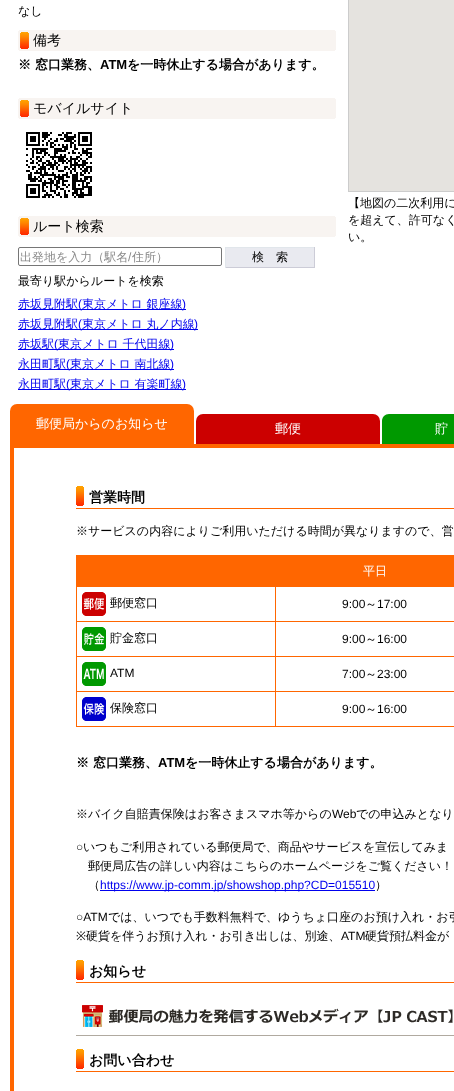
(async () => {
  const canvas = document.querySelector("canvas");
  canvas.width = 454;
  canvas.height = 1091;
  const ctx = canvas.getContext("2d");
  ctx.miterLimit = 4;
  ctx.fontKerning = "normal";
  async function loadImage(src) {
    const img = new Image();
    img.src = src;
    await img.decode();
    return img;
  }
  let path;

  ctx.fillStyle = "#ffffff";
  ctx.fillRect(0, 0, 454, 1091);
  ctx.drawImage(await loadImage("img/1.png"), 18, 30, 318, 21);
  ctx.drawImage(await loadImage("img/1.png"), 18, 98, 318, 21);
  ctx.drawImage(await loadImage("img/2.png"), 26, 132, 66, 66);
  ctx.drawImage(await loadImage("img/1.png"), 18, 216, 318, 21);
  ctx.beginPath();
  ctx.roundRect(18.5, 247.5, 203, 18, 1.5);
  ctx.strokeStyle = "#767676";
  ctx.stroke();
  for (const [x, y, w, h, color] of [
    [226, 248, 88, 19, "#e9eaf0"],
    [225, 247, 90, 1, "#e1e6eb"],
    [314, 247, 1, 21, "#ccccd7"],
    [225, 267, 90, 1, "#ccccd7"],
    [225, 247, 1, 21, "#e1e6eb"],
    [18, 309, 168, 1, "#0000ee"],
    [18, 329, 180, 1, "#0000ee"],
    [18, 349, 156, 1, "#0000ee"],
    [18, 369, 156, 1, "#0000ee"],
    [18, 389, 168, 1, "#0000ee"],
  ]) {
    ctx.fillStyle = color;
    ctx.fillRect(x, y, w, h);
  }
  ctx.strokeStyle = "#cccccc";
  ctx.strokeRect(348.5, -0.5, 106, 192);
  ctx.fillStyle = "#e5e3df";
  ctx.fillRect(349, 0, 105, 191);
  ctx.fillStyle = "#ff6600";
  ctx.beginPath();
  ctx.roundRect(10, 404, 184, 40, [7, 7, 0, 0]);
  ctx.fill();
  ctx.strokeStyle = "#ff6600";
  ctx.lineWidth = 4;
  ctx.strokeRect(12, 446, 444, 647);
  ctx.drawImage(await loadImage("img/3.png"), 76, 486, 8, 20);
  for (const [x, y, w, h, color] of [
    [76, 508, 378, 1, "#ff6600"],
    [76, 726, 378, 1, "#ff6600"],
    [77, 556, 198, 30, "#ff6600"],
    [76, 555, 200, 1, "#ff6600"],
    [275, 586, 179, 1, "#ff6600"],
    [275, 621, 179, 1, "#ff6600"],
    [275, 656, 179, 1, "#ff6600"],
    [275, 691, 179, 1, "#ff6600"],
    [275, 691, 1, 36, "#ff6600"],
    [76, 691, 200, 1, "#ff6600"],
    [275, 656, 1, 36, "#ff6600"],
    [76, 656, 200, 1, "#ff6600"],
    [275, 621, 1, 36, "#ff6600"],
    [76, 621, 200, 1, "#ff6600"],
    [275, 586, 1, 36, "#ff6600"],
    [76, 586, 200, 1, "#ff6600"],
    [275, 555, 1, 32, "#ff6600"],
    [76, 691, 1, 36, "#ff6600"],
    [76, 656, 1, 36, "#ff6600"],
    [76, 621, 1, 36, "#ff6600"],
    [76, 586, 1, 36, "#ff6600"],
    [76, 555, 1, 32, "#ff6600"],
    [276, 555, 178, 31, "#ff6600"],
  ]) {
    ctx.fillStyle = color;
    ctx.fillRect(x, y, w, h);
  }
  ctx.drawImage(await loadImage("img/4.png"), 82, 592, 24, 24);
  ctx.drawImage(await loadImage("img/5.png"), 82, 627, 24, 24);
  ctx.drawImage(await loadImage("img/6.png"), 82, 662, 24, 24);
  ctx.drawImage(await loadImage("img/7.png"), 82, 697, 24, 24);
  ctx.fillStyle = "#0000ee";
  ctx.fillRect(100, 890, 275, 1);
  ctx.drawImage(await loadImage("img/3.png"), 76, 960, 8, 20);
  ctx.fillStyle = "#ff6600";
  ctx.fillRect(76, 982, 378, 1);
  ctx.drawImage(await loadImage("img/8.png"), 76, 1005, 378, 31);
  ctx.drawImage(await loadImage("img/3.png"), 76, 1049, 8, 20);
  ctx.fillRect(76, 1071, 378, 1);
  ctx.fillStyle = "#cc0000";
  ctx.beginPath();
  ctx.roundRect(196, 414, 184, 30, [7, 7, 0, 0]);
  ctx.fill();
  ctx.fillStyle = "#009900";
  path = new Path2D("M389 414H454C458 414 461 417 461 421V444H382V421C382 417 385 414 389 414Z");
  ctx.fill(path);
  ctx.font = "500 12px WenQuanYi Zen Hei";
  ctx.fillStyle = "#000000";
  ctx.fillText("なし", 18, 15);
  ctx.font = "500 14px WenQuanYi Zen Hei";
  ctx.fillText("備考", 33, 45);
  ctx.font = "bold 13px WenQuanYi Zen Hei";
  ctx.fillText("※ 窓口業務、", 18, 69);
  ctx.font = "bold 13px Liberation Sans";
  ctx.fillText("ATM", 100, 69);
  ctx.font = "bold 13px WenQuanYi Zen Hei";
  ctx.fillText("を一時休止する場合があります。", 127, 69);
  ctx.font = "500 14px WenQuanYi Zen Hei";
  ctx.fillText("モバイルサイト", 33, 113);
  ctx.fillText("ルート検索", 33, 231);
  ctx.font = "500 12px WenQuanYi Zen Hei";
  ctx.fillStyle = "#898989";
  ctx.fillText("出発地を入力（駅名", 20, 261);
  ctx.font = "12px Liberation Sans";
  ctx.fillText("/", 128, 261);
  ctx.font = "500 12px WenQuanYi Zen Hei";
  ctx.fillText("住所）", 132, 261);
  ctx.fillStyle = "#000000";
  ctx.fillText("検　索", 252, 261);
  ctx.fillText("最寄り駅からルートを検索", 18, 285);
  ctx.fillStyle = "#0000ee";
  ctx.fillText("赤坂見附駅", 18, 308);
  ctx.font = "12px Liberation Sans";
  ctx.fillText("(", 78, 308);
  ctx.font = "500 12px WenQuanYi Zen Hei";
  ctx.fillText("東京メトロ 銀座線", 82, 308);
  ctx.font = "12px Liberation Sans";
  ctx.fillText(")", 182, 308);
  ctx.font = "500 12px WenQuanYi Zen Hei";
  ctx.fillText("赤坂見附駅", 18, 328);
  ctx.font = "12px Liberation Sans";
  ctx.fillText("(", 78, 328);
  ctx.font = "500 12px WenQuanYi Zen Hei";
  ctx.fillText("東京メトロ 丸ノ内線", 82, 328);
  ctx.font = "12px Liberation Sans";
  ctx.fillText(")", 194, 328);
  ctx.font = "500 12px WenQuanYi Zen Hei";
  ctx.fillText("赤坂駅", 18, 348);
  ctx.font = "12px Liberation Sans";
  ctx.fillText("(", 54, 348);
  ctx.font = "500 12px WenQuanYi Zen Hei";
  ctx.fillText("東京メトロ 千代田線", 58, 348);
  ctx.font = "12px Liberation Sans";
  ctx.fillText(")", 170, 348);
  ctx.font = "500 12px WenQuanYi Zen Hei";
  ctx.fillText("永田町駅", 18, 368);
  ctx.font = "12px Liberation Sans";
  ctx.fillText("(", 66, 368);
  ctx.font = "500 12px WenQuanYi Zen Hei";
  ctx.fillText("東京メトロ 南北線", 70, 368);
  ctx.font = "12px Liberation Sans";
  ctx.fillText(")", 170, 368);
  ctx.font = "500 12px WenQuanYi Zen Hei";
  ctx.fillText("永田町駅", 18, 388);
  ctx.font = "12px Liberation Sans";
  ctx.fillText("(", 66, 388);
  ctx.font = "500 12px WenQuanYi Zen Hei";
  ctx.fillText("東京メトロ 有楽町線", 70, 388);
  ctx.font = "12px Liberation Sans";
  ctx.fillText(")", 182, 388);
  ctx.font = "500 12px WenQuanYi Zen Hei";
  ctx.fillStyle = "#000000";
  for (const [text, x, y] of [
    ["【地図の二次利用に", 348, 207],
    ["を超えて、許可なく", 348, 224],
    ["い。", 348, 241],
  ]) {
    ctx.fillText(text, x, y);
  }
  ctx.font = "500 13px WenQuanYi Zen Hei";
  ctx.fillStyle = "#ffffff";
  ctx.fillText("郵便局からのお知らせ", 36, 428);
  ctx.font = "bold 14px WenQuanYi Zen Hei";
  ctx.fillStyle = "#000000";
  ctx.fillText("営業時間", 89, 502);
  ctx.font = "500 12px WenQuanYi Zen Hei";
  ctx.fillText("※サービスの内容によりご利用いただける時間が異なりますので、営", 76, 535);
  ctx.fillStyle = "#ffffff";
  ctx.fillText("平日", 363, 575);
  ctx.fillStyle = "#000000";
  ctx.fillText("郵便窓口", 110, 607);
  ctx.font = "12px Liberation Sans";
  ctx.fillText("9:00", 342, 608);
  ctx.font = "500 12px WenQuanYi Zen Hei";
  ctx.fillText("～", 365, 608);
  ctx.font = "12px Liberation Sans";
  ctx.fillText("17:00", 377, 608);
  ctx.font = "500 12px WenQuanYi Zen Hei";
  ctx.fillText("貯金窓口", 110, 642);
  ctx.font = "12px Liberation Sans";
  ctx.fillText("9:00", 342, 643);
  ctx.font = "500 12px WenQuanYi Zen Hei";
  ctx.fillText("～", 365, 643);
  ctx.font = "12px Liberation Sans";
  for (const [text, x, y] of [
    ["16:00", 377, 643],
    ["ATM", 110, 677],
    ["7:00", 342, 678],
  ]) {
    ctx.fillText(text, x, y);
  }
  ctx.font = "500 12px WenQuanYi Zen Hei";
  ctx.fillText("～", 365, 678);
  ctx.font = "12px Liberation Sans";
  ctx.fillText("23:00", 377, 678);
  ctx.font = "500 12px WenQuanYi Zen Hei";
  ctx.fillText("保険窓口", 110, 712);
  ctx.font = "12px Liberation Sans";
  ctx.fillText("9:00", 342, 713);
  ctx.font = "500 12px WenQuanYi Zen Hei";
  ctx.fillText("～", 365, 713);
  ctx.font = "12px Liberation Sans";
  ctx.fillText("16:00", 377, 713);
  ctx.font = "bold 13px WenQuanYi Zen Hei";
  ctx.fillText("※ 窓口業務、", 76, 767);
  ctx.font = "bold 13px Liberation Sans";
  ctx.fillText("ATM", 158, 767);
  ctx.font = "bold 13px WenQuanYi Zen Hei";
  ctx.fillText("を一時休止する場合があります。", 185, 767);
  ctx.font = "500 12px WenQuanYi Zen Hei";
  ctx.fillText("※バイク自賠責保険はお客さまスマホ等からの", 76, 818);
  ctx.font = "12px Liberation Sans";
  ctx.fillText("Web", 332, 818);
  ctx.font = "500 12px WenQuanYi Zen Hei";
  ctx.fillText("での申込みとなり", 356, 818);
  ctx.font = "12px Liberation Sans";
  ctx.fillText("○", 76, 851);
  ctx.font = "500 12px WenQuanYi Zen Hei";
  for (const [text, x, y] of [
    ["いつもご利用されている郵便局で、商品やサービスを宣伝してみま", 83, 851],
    ["郵便局広告の詳しい内容はこちらのホームページをご覧ください！", 88, 870],
    ["（", 88, 889],
  ]) {
    ctx.fillText(text, x, y);
  }
  ctx.font = "12px Liberation Sans";
  ctx.fillStyle = "#0000ee";
  ctx.fillText("https://www.jp-comm.jp/showshop.php?CD=015510", 100, 889);
  ctx.font = "500 12px WenQuanYi Zen Hei";
  ctx.fillStyle = "#000000";
  ctx.fillText("）", 375, 889);
  ctx.font = "12px Liberation Sans";
  ctx.fillText("○ATM", 76, 921);
  ctx.font = "500 12px WenQuanYi Zen Hei";
  ctx.fillText("では、いつでも手数料無料で、ゆうちょ口座のお預け入れ・お引", 108, 921);
  ctx.font = "12px Noto Sans";
  ctx.fillText("※", 76, 940);
  ctx.font = "500 12px WenQuanYi Zen Hei";
  ctx.fillText("硬貨を伴うお預け入れ・お引き出しは、別途、", 86, 940);
  ctx.font = "12px Liberation Sans";
  ctx.fillText("ATM", 341, 940);
  ctx.font = "500 12px WenQuanYi Zen Hei";
  ctx.fillText("硬貨預払料金が", 365, 940);
  ctx.font = "bold 14px WenQuanYi Zen Hei";
  ctx.fillText("お知らせ", 89, 976);
  ctx.fillText("お問い合わせ", 89, 1065);
  ctx.font = "500 13px WenQuanYi Zen Hei";
  ctx.fillStyle = "#ffffff";
  ctx.fillText("郵便", 275, 433);
  ctx.fillText("貯", 435, 433);
})();
